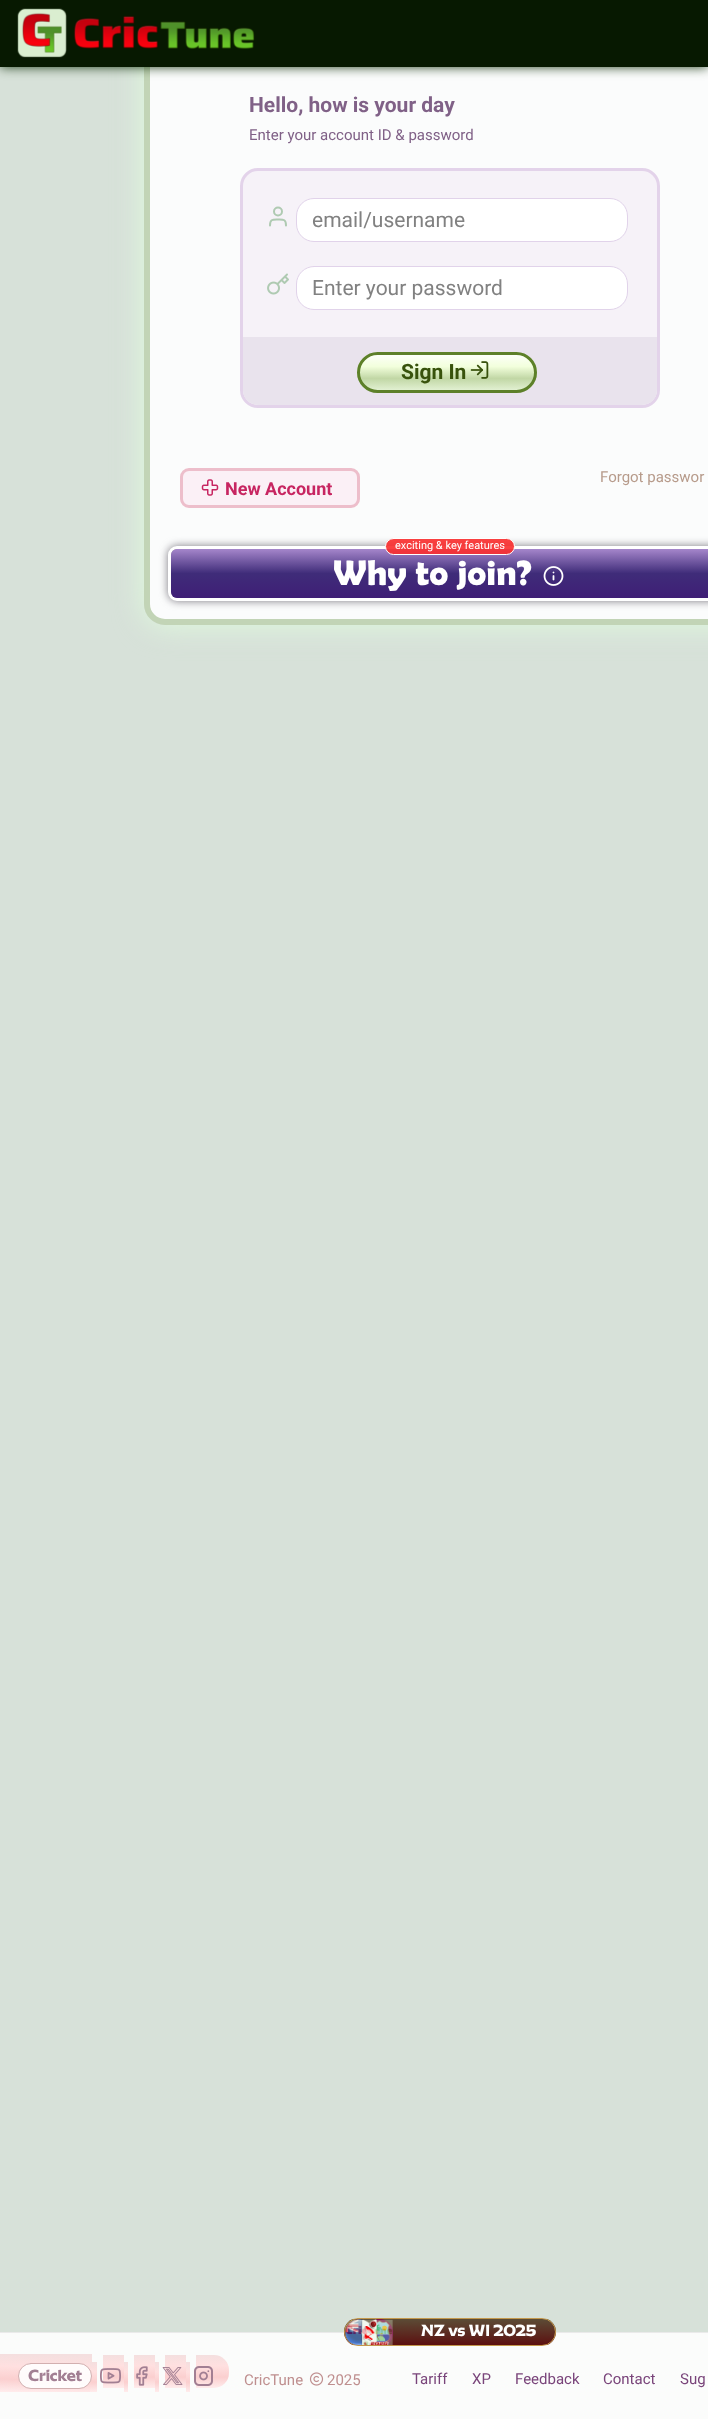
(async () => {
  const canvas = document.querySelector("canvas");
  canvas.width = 708;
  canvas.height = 2419;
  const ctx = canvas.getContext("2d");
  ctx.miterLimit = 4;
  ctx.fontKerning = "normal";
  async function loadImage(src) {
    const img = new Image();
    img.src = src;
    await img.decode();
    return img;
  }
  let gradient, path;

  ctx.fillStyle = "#d7e1d9";
  ctx.fillRect(0, 0, 708, 2419);
  ctx.save();
  path = new Path2D("M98 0H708V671H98ZM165 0H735C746.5 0 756 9.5 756 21V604C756 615.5 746.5 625 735 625H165C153.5 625 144 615.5 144 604V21C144 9.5 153.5 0 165 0Z");
  ctx.clip(path, "evenodd");
  ctx.fillStyle = "rgba(225, 255, 222, 0.9)";
  ctx.filter = "blur(15px)";
  ctx.beginPath();
  ctx.roundRect(144, 0, 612, 625, 21);
  ctx.fill();
  ctx.filter = "none";
  ctx.restore();
  ctx.fillStyle = "rgba(255, 255, 255, 0.9)";
  ctx.beginPath();
  ctx.roundRect(147, 3, 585, 619, 18);
  ctx.fill();
  ctx.strokeStyle = "#c2d4b6";
  ctx.lineWidth = 6;
  ctx.stroke();
  ctx.fillStyle = "rgba(12, 45, 6, 0.9)";
  ctx.filter = "blur(6px)";
  ctx.beginPath();
  ctx.rect(0, 0, 708, 67);
  ctx.fill();
  ctx.filter = "none";
  ctx.fillStyle = "#071901";
  ctx.fillRect(0, 0, 708, 67);
  ctx.drawImage(await loadImage("img/1.png"), 17, 8, 238, 50);
  ctx.fillStyle = "#f6f2f8";
  ctx.beginPath();
  ctx.roundRect(241.5, 169.5, 417, 237, 16.5);
  ctx.fill();
  ctx.strokeStyle = "#e3d3ea";
  ctx.lineWidth = 3;
  ctx.stroke();
  ctx.beginPath();
  ctx.arc(278, 211.5, 4, 0, Math.PI * 2);
  ctx.strokeStyle = "#afcab2";
  ctx.lineWidth = 2;
  ctx.stroke();
  ctx.fillStyle = "#ffffff";
  ctx.beginPath();
  ctx.roundRect(296.5, 198.5, 331, 43, 17.5);
  ctx.fill();
  ctx.strokeStyle = "#e1d3ea";
  ctx.lineWidth = 1;
  ctx.stroke();
  path = new Path2D("M286 225.5C286 219 283.5 219.5 278 219.5C272.5 219.5 270 219 270 225.5");
  ctx.strokeStyle = "#afcab2";
  ctx.lineWidth = 2;
  ctx.lineCap = "round";
  ctx.lineJoin = "round";
  ctx.stroke(path);
  ctx.drawImage(await loadImage("img/2.png"), 267, 273, 22, 22);
  ctx.beginPath();
  ctx.roundRect(296.5, 266.5, 331, 43, 17.5);
  ctx.fill();
  ctx.strokeStyle = "#e1d3ea";
  ctx.lineWidth = 1;
  ctx.lineJoin = "miter";
  ctx.stroke();
  ctx.fillStyle = "#e9e3ed";
  ctx.beginPath();
  ctx.roundRect(243, 337, 414, 68, [0, 0, 15, 15]);
  ctx.fill();
  ctx.save();
  ctx.beginPath();
  ctx.roundRect(357, 352, 180, 41, 20.5);
  ctx.clip();
  gradient = ctx.createLinearGradient(447, 355, 447, 390);
  gradient.addColorStop(0, "#fcfff8");
  gradient.addColorStop(0.33, "#f2ffdc");
  gradient.addColorStop(0.67, "#c1d7a5");
  gradient.addColorStop(1, "#e1f0d1");
  ctx.fillStyle = gradient;
  ctx.fillRect(357, 355, 180, 35);
  ctx.restore();
  ctx.beginPath();
  ctx.roundRect(358.5, 353.5, 177, 38, 19);
  ctx.strokeStyle = "#5d8029";
  ctx.lineWidth = 3;
  ctx.stroke();
  ctx.drawImage(await loadImage("img/3.png"), 470, 361, 19, 18);
  ctx.fillStyle = "#fbf0f6";
  ctx.beginPath();
  ctx.roundRect(181.5, 469.5, 177, 37, 7.5);
  ctx.fill();
  ctx.strokeStyle = "#edbecb";
  ctx.stroke();
  ctx.drawImage(await loadImage("img/4.png"), 201, 479, 18, 17);
  ctx.fillStyle = "rgba(111, 108, 116, 0.9)";
  ctx.filter = "blur(4.5px)";
  ctx.beginPath();
  ctx.roundRect(168, 546, 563, 55, 9);
  ctx.fill();
  ctx.filter = "none";
  ctx.beginPath();
  ctx.roundRect(169.5, 547.5, 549, 52, 7.5);
  ctx.strokeStyle = "#ffffff";
  ctx.stroke();
  gradient = ctx.createLinearGradient(450, 549, 450, 598);
  gradient.addColorStop(0, "#a586cb");
  gradient.addColorStop(0.5, "#3f2c79");
  gradient.addColorStop(1, "#3f1e76");
  ctx.fillStyle = gradient;
  ctx.beginPath();
  ctx.roundRect(171, 549, 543, 49, 6);
  ctx.fill();
  ctx.fillStyle = "rgba(249, 44, 44, 0.9)";
  ctx.beginPath();
  ctx.roundRect(385.5, 538.5, 129, 16, 8);
  ctx.fill();
  ctx.lineWidth = 1;
  ctx.stroke();
  ctx.drawImage(await loadImage("img/5.png"), 543, 566, 21, 20);
  ctx.fillStyle = "#fbfcfb";
  ctx.fillRect(0, 2333, 708, 86);
  ctx.fillStyle = "#eaeaea";
  ctx.fillRect(0, 2332, 708, 1);
  ctx.save();
  ctx.beginPath();
  ctx.roundRect(344, 2318, 212, 28, 14);
  ctx.clip();
  gradient = ctx.createLinearGradient(450, 2319, 450, 2345);
  gradient.addColorStop(0, "#5c4c36");
  gradient.addColorStop(1, "#5c1010");
  ctx.fillStyle = gradient;
  ctx.fillRect(344, 2319, 212, 26);
  ctx.restore();
  ctx.beginPath();
  ctx.roundRect(344.5, 2318.5, 211, 27, 13.5);
  ctx.strokeStyle = "#c3984b";
  ctx.stroke();
  ctx.drawImage(await loadImage("img/6.png"), 345, 2319, 48, 26);
  gradient = ctx.createLinearGradient(18, 2354, 17, 2392);
  gradient.addColorStop(0, "#f4dfdf");
  gradient.addColorStop(0.33, "#ffe0e0");
  gradient.addColorStop(0.67, "#fbcfcf");
  gradient.addColorStop(1, "#ffecec");
  ctx.fillStyle = gradient;
  ctx.fillRect(0, 2354, 92, 38);
  gradient = ctx.createLinearGradient(94, 2362, 94, 2392);
  gradient.addColorStop(0, "#f4dfdf");
  gradient.addColorStop(0.33, "#ffe0e0");
  gradient.addColorStop(0.67, "#fbcfcf");
  gradient.addColorStop(1, "#ffecec");
  ctx.fillStyle = gradient;
  ctx.fillRect(90, 2362, 7, 30);
  gradient = ctx.createLinearGradient(114, 2355, 114, 2388);
  gradient.addColorStop(0, "#f4dfdf");
  gradient.addColorStop(0.33, "#ffe0e0");
  gradient.addColorStop(0.67, "#fbcfcf");
  gradient.addColorStop(1, "#ffecec");
  ctx.fillStyle = gradient;
  ctx.fillRect(103, 2355, 21, 33);
  gradient = ctx.createLinearGradient(126, 2362, 126, 2392);
  gradient.addColorStop(0, "#f4dfdf");
  gradient.addColorStop(0.33, "#ffe0e0");
  gradient.addColorStop(0.67, "#fbcfcf");
  gradient.addColorStop(1, "#ffecec");
  ctx.fillStyle = gradient;
  ctx.fillRect(124, 2362, 4, 30);
  gradient = ctx.createLinearGradient(145, 2355, 145, 2388);
  gradient.addColorStop(0, "#f4dfdf");
  gradient.addColorStop(0.33, "#ffe0e0");
  gradient.addColorStop(0.67, "#fbcfcf");
  gradient.addColorStop(1, "#ffecec");
  ctx.fillStyle = gradient;
  ctx.fillRect(134, 2355, 21, 33);
  gradient = ctx.createLinearGradient(157, 2362, 157, 2392);
  gradient.addColorStop(0, "#f4dfdf");
  gradient.addColorStop(0.33, "#ffe0e0");
  gradient.addColorStop(0.67, "#fbcfcf");
  gradient.addColorStop(1, "#ffecec");
  ctx.fillStyle = gradient;
  ctx.fillRect(155, 2362, 4, 30);
  gradient = ctx.createLinearGradient(176, 2355, 176, 2388);
  gradient.addColorStop(0, "#f4dfdf");
  gradient.addColorStop(0.33, "#ffe0e0");
  gradient.addColorStop(0.67, "#fbcfcf");
  gradient.addColorStop(1, "#ffecec");
  ctx.fillStyle = gradient;
  ctx.fillRect(165, 2355, 21, 33);
  gradient = ctx.createLinearGradient(188, 2362, 188, 2392);
  gradient.addColorStop(0, "#f4dfdf");
  gradient.addColorStop(0.33, "#ffe0e0");
  gradient.addColorStop(0.67, "#fbcfcf");
  gradient.addColorStop(1, "#ffecec");
  ctx.fillStyle = gradient;
  ctx.fillRect(186, 2362, 4, 30);
  gradient = ctx.createLinearGradient(213, 2355, 213, 2388);
  gradient.addColorStop(0, "#f4dfdf");
  gradient.addColorStop(0.33, "#ffe0e0");
  gradient.addColorStop(0.67, "#fbcfcf");
  gradient.addColorStop(1, "#ffecec");
  ctx.fillStyle = gradient;
  ctx.beginPath();
  ctx.roundRect(196, 2355, 33, 33, [0, 15, 15, 0]);
  ctx.fill();
  ctx.fillStyle = "rgba(255, 255, 255, 0.9)";
  ctx.beginPath();
  ctx.roundRect(18.5, 2363.5, 73, 25, 12.5);
  ctx.fill();
  ctx.strokeStyle = "#d2b0b0";
  ctx.stroke();
  ctx.drawImage(await loadImage("img/7.png"), 100, 2368, 21, 16);
  ctx.drawImage(await loadImage("img/8.png"), 136, 2366, 12, 20);
  ctx.drawImage(await loadImage("img/9.png"), 162, 2367, 21, 18);
  ctx.drawImage(await loadImage("img/10.png"), 194, 2366, 19, 20);
  ctx.drawImage(await loadImage("img/11.png"), 309, 2372, 15, 14);
  ctx.font = "bold 21px Roboto";
  ctx.fillStyle = "#806187";
  ctx.fillText("Hello, how is your day", 249, 112);
  ctx.font = "15px Roboto";
  ctx.fillText("Enter your account ID & password", 249, 140);
  ctx.font = "21px Roboto";
  ctx.fillStyle = "#818181";
  ctx.fillText("email/username", 312, 227);
  ctx.fillText("Enter your password", 312, 295);
  ctx.font = "bold 21px Roboto";
  ctx.fillStyle = "#38520c";
  ctx.fillText("Sign In", 401, 379);
  ctx.font = "15px Roboto";
  ctx.fillStyle = "#b79b8b";
  ctx.fillText("Forgot passwor", 600, 482);
  ctx.font = "bold 18px Roboto";
  ctx.fillStyle = "#c72561";
  ctx.fillText("New Account", 225, 495);
  ctx.font = "11px Roboto";
  ctx.fillStyle = "#ffffff";
  ctx.fillText("exciting & key features", 395, 549);
  ctx.font = "600 36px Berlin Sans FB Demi";
  ctx.fillText("Why to join?", 333, 585);
  ctx.font = "bold 15px 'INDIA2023'";
  ctx.fillText("NZ vs WI 2025", 421, 2336);
  ctx.fillStyle = "#a27f93";
  ctx.fillText("Cricket", 28, 2381);
  ctx.font = "15px Roboto";
  ctx.fillStyle = "#bf8f8f";
  ctx.fillText("CricTune", 244, 2385);
  ctx.fillText("2025", 327, 2385);
  ctx.fillStyle = "#79447a";
  for (const [text, x, y] of [
    ["Tariff", 412, 2384],
    ["XP", 472, 2384],
    ["Feedback", 515, 2384],
    ["Contact", 603, 2384],
    ["Sug", 680, 2384],
  ]) {
    ctx.fillText(text, x, y);
  }
})();
